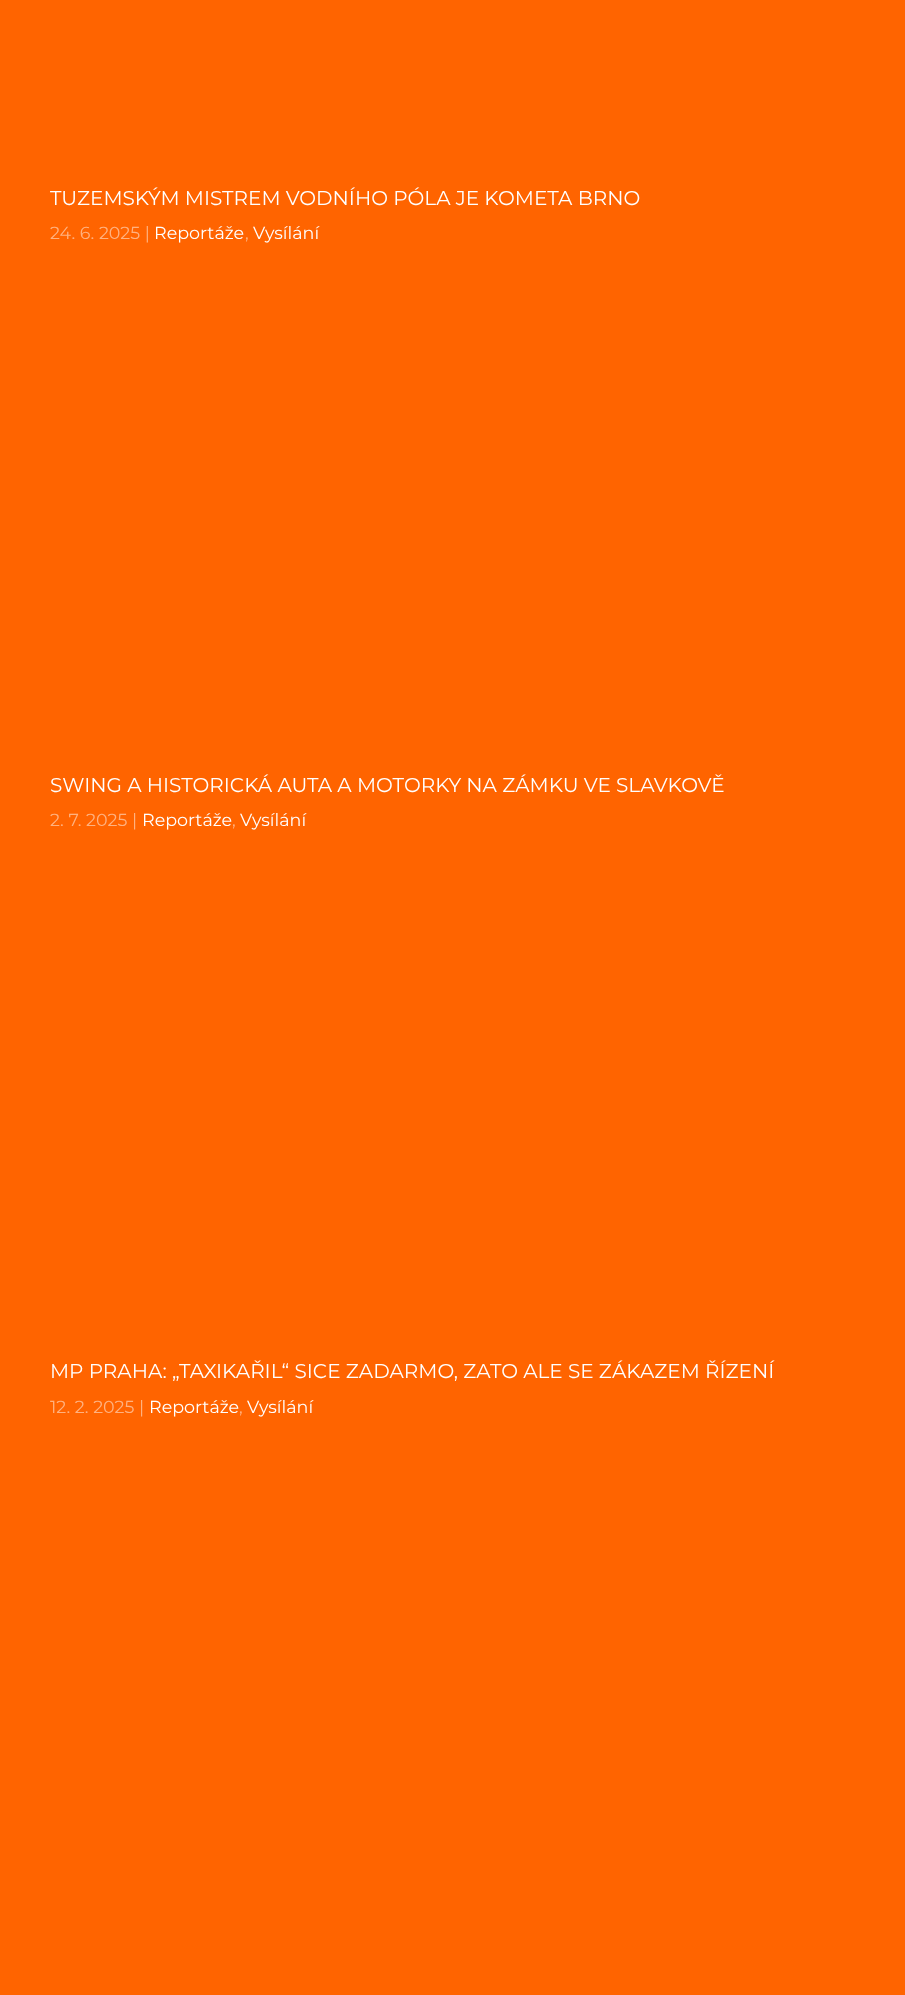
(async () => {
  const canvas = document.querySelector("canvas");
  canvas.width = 905;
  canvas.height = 1995;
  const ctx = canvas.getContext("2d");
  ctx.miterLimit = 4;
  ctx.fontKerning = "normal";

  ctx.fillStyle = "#ff6400";
  ctx.fillRect(0, 0, 905, 1995);
  ctx.font = "20px Montserrat";
  ctx.fillStyle = "#ffffff";
  ctx.fillText("TUZEMSKÝM MISTREM VODNÍHO PÓLA JE KOMETA BRNO", 50, 205);
  ctx.font = "17.5px Montserrat";
  ctx.fillStyle = "#ffb280";
  ctx.fillText("24. 6. 2025 |", 50, 239);
  ctx.fillStyle = "#ffffff";
  ctx.fillText("Reportáže", 154, 239);
  ctx.fillStyle = "#ffb280";
  ctx.fillText(",", 245, 239);
  ctx.fillStyle = "#ffffff";
  ctx.fillText("Vysílání", 253, 239);
  ctx.font = "20px Montserrat";
  ctx.fillText("SWING A HISTORICKÁ AUTA A MOTORKY NA ZÁMKU VE SLAVKOVĚ", 50, 792);
  ctx.font = "17.5px Montserrat";
  ctx.fillStyle = "#ffb280";
  ctx.fillText("2. 7. 2025 |", 50, 826);
  ctx.fillStyle = "#ffffff";
  ctx.fillText("Reportáže", 142, 826);
  ctx.fillStyle = "#ffb280";
  ctx.fillText(",", 232, 826);
  ctx.fillStyle = "#ffffff";
  ctx.fillText("Vysílání", 240, 826);
  ctx.font = "20px Montserrat";
  ctx.fillText("MP PRAHA: „TAXIKAŘIL“ SICE ZADARMO, ZATO ALE SE ZÁKAZEM ŘÍZENÍ", 50, 1378);
  ctx.font = "17.5px Montserrat";
  ctx.fillStyle = "#ffb280";
  ctx.fillText("12. 2. 2025 |", 50, 1413);
  ctx.fillStyle = "#ffffff";
  ctx.fillText("Reportáže", 149, 1413);
  ctx.fillStyle = "#ffb280";
  ctx.fillText(",", 239, 1413);
  ctx.fillStyle = "#ffffff";
  ctx.fillText("Vysílání", 247, 1413);
})();
